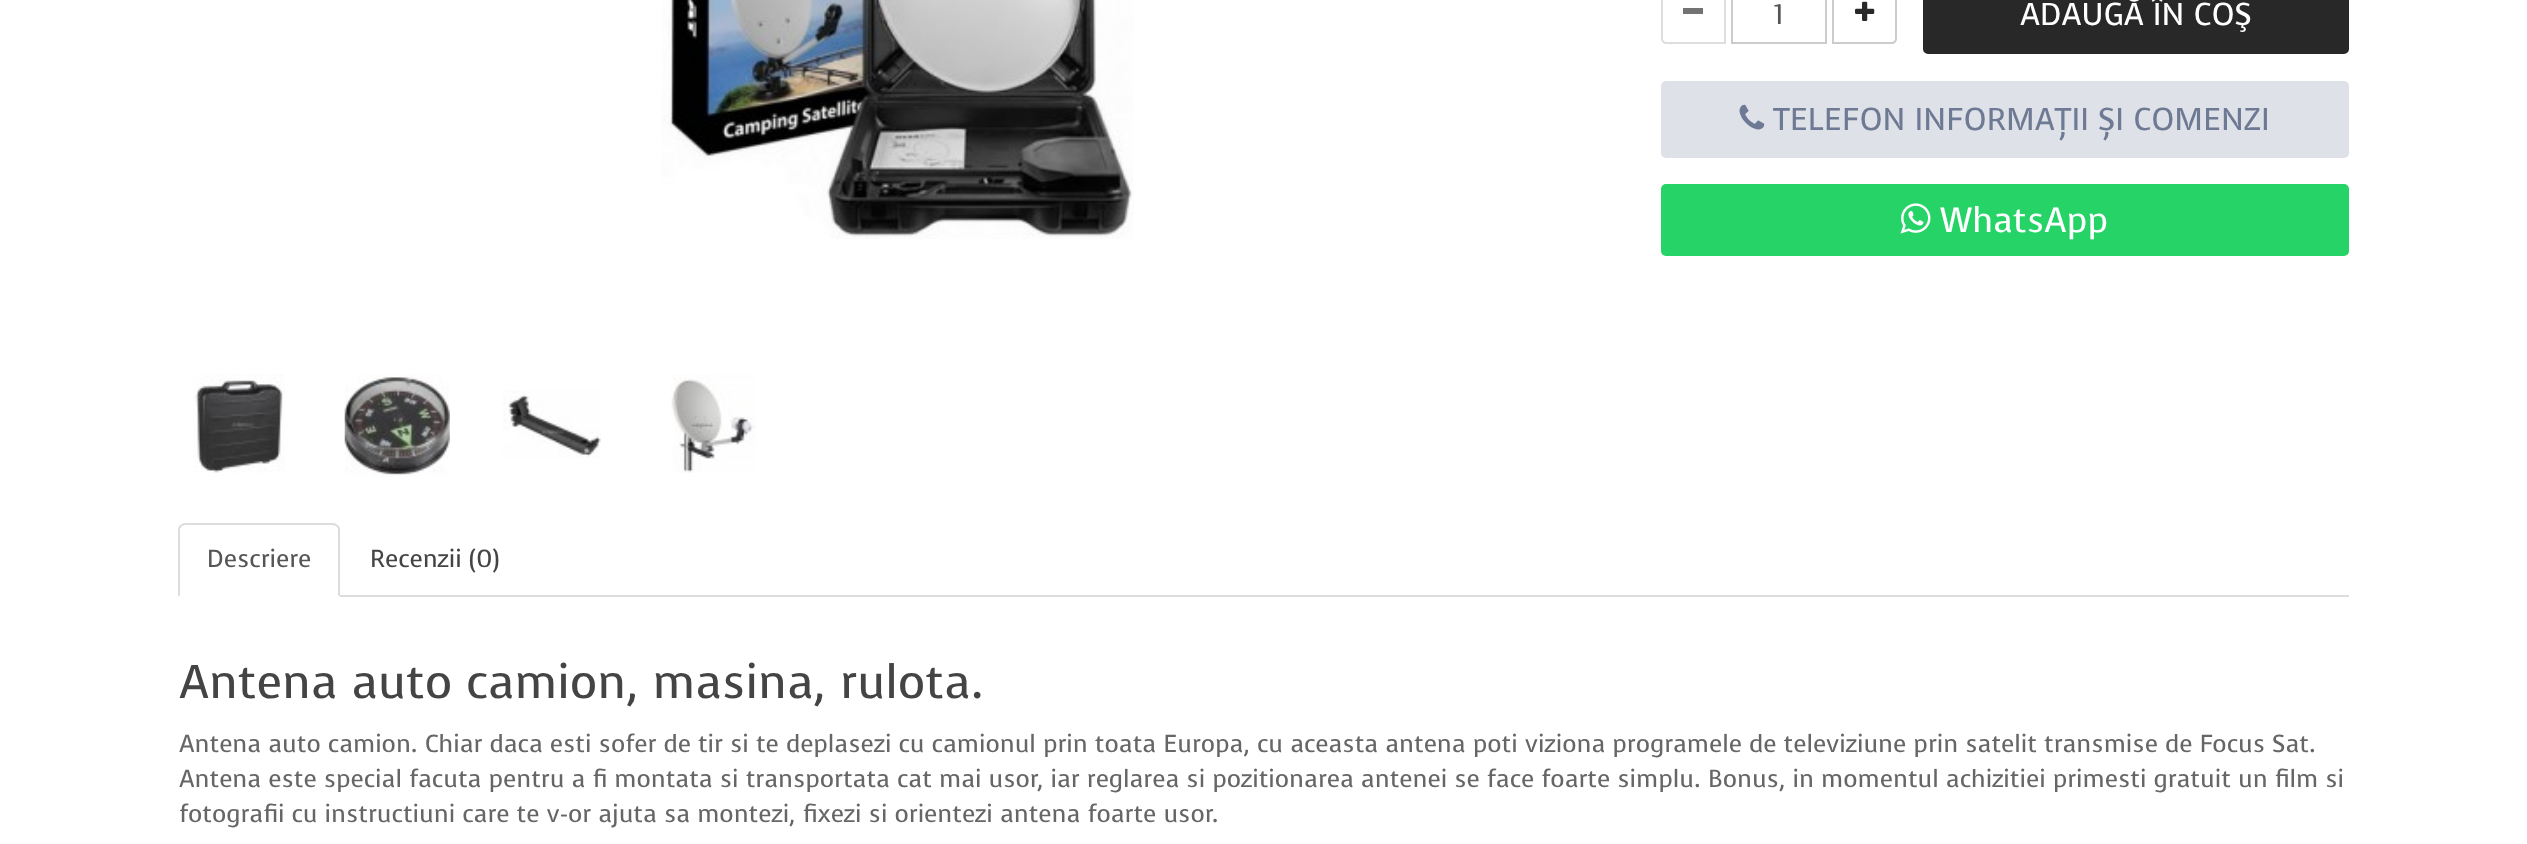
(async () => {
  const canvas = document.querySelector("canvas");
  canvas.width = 2527;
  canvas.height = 844;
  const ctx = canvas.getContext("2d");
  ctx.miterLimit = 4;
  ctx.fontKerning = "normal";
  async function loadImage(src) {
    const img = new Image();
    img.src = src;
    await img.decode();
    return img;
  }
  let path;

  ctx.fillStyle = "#ffffff";
  ctx.fillRect(0, 0, 2527, 844);
  ctx.drawImage(await loadImage("img/1.png"), 661, 0, 473, 239);
  ctx.drawImage(await loadImage("img/2.png"), 193, 374, 92, 99);
  ctx.drawImage(await loadImage("img/3.png"), 344, 374, 106, 103);
  ctx.drawImage(await loadImage("img/4.png"), 502, 390, 99, 68);
  ctx.drawImage(await loadImage("img/5.png"), 671, 374, 85, 99);
  path = new Path2D("M1666-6H1725V43H1666C1664 43 1662 41 1662 39V-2C1662-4 1664-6 1666-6Z");
  ctx.strokeStyle = "#dedede";
  ctx.lineWidth = 2;
  ctx.stroke(path);
  ctx.fillStyle = "#737373";
  ctx.fillRect(1683, 8, 20, 6);
  ctx.strokeStyle = "#cccccc";
  ctx.strokeRect(1732, -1, 94, 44);
  path = new Path2D("M1833-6H1892C1894-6 1896-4 1896-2V39C1896 41 1894 43 1892 43H1833Z");
  ctx.stroke(path);
  ctx.drawImage(await loadImage("img/6.png"), 1855, 1, 20, 20);
  ctx.fillStyle = "#282828";
  ctx.beginPath();
  ctx.roundRect(1924, -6, 424, 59, 4);
  ctx.fill();
  ctx.strokeStyle = "#282828";
  ctx.stroke();
  ctx.fillStyle = "#dee1e8";
  ctx.beginPath();
  ctx.roundRect(1661, 81, 688, 77, 5);
  ctx.fill();
  ctx.drawImage(await loadImage("img/7.png"), 1739, 104, 26, 26);
  ctx.fillStyle = "#25d366";
  ctx.beginPath();
  ctx.roundRect(1661, 184, 688, 72, 5);
  ctx.fill();
  ctx.drawImage(await loadImage("img/8.png"), 1900, 203, 31, 31);
  ctx.fillStyle = "#dddddd";
  ctx.fillRect(340, 595, 2009, 2);
  path = new Path2D("M186 525C184 525 183 526 182 526L180 525L184 523H334L338 525L336 526C335 526 334 525 332 525Z");
  ctx.fill(path);
  path = new Path2D("M338 525L340 528V597L338 595V529L336 526Z");
  ctx.fill(path);
  path = new Path2D("M178 597V528L180 525L182 526L180 529V595Z");
  ctx.fill(path);
  ctx.font = "28px Voces";
  ctx.fillStyle = "#555555";
  ctx.fillText("1", 1774, 24);
  ctx.font = "31.5px Voces";
  ctx.fillStyle = "#ffffff";
  ctx.fillText("ADAUGĂ ÎN COŞ", 2020, 25);
  ctx.fillStyle = "#6e7a93";
  ctx.fillText("TELEFON INFORMAȚII ȘI COMENZI", 1773, 130);
  ctx.font = "35px Voces";
  ctx.fillStyle = "#ffffff";
  ctx.fillText("WhatsApp", 1940, 232);
  ctx.font = "24.5px Voces";
  ctx.fillStyle = "#555555";
  ctx.fillText("Descriere", 207, 567);
  ctx.fillStyle = "#444444";
  ctx.fillText("Recenzii (0)", 370, 567);
  ctx.font = "47.25px Voces";
  ctx.fillText("Antena auto camion, masina, rulota.", 179, 698);
  ctx.font = "24.5px Voces";
  ctx.fillStyle = "#666666";
  for (const [text, x, y] of [
    ["Antena auto camion. Chiar daca esti sofer de tir si te deplasezi cu camionul prin toata Europa, cu aceasta antena poti viziona programele de televiziune prin satelit transmise de Focus Sat.", 179, 752],
    ["Antena este special facuta pentru a fi montata si transportata cat mai usor, iar reglarea si pozitionarea antenei se face foarte simplu. Bonus, in momentul achizitiei primesti gratuit un film si", 179, 787],
    ["fotografii cu instructiuni care te v-or ajuta sa montezi, fixezi si orientezi antena foarte usor.", 179, 822],
  ]) {
    ctx.fillText(text, x, y);
  }
})();
